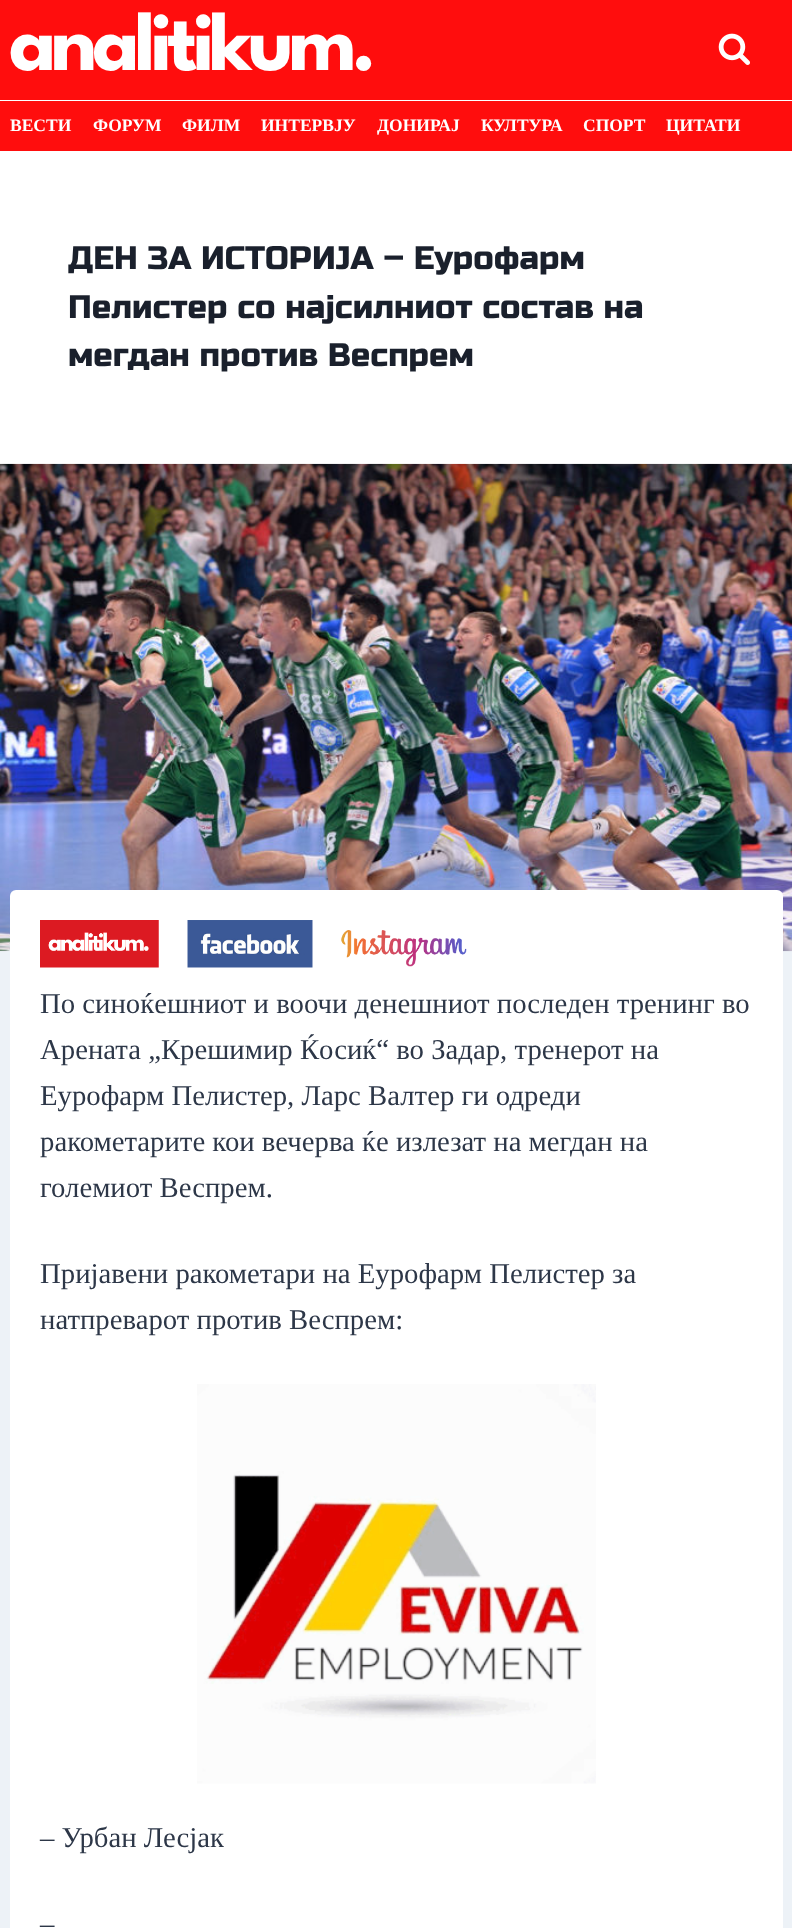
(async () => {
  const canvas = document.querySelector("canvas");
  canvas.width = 792;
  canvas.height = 1928;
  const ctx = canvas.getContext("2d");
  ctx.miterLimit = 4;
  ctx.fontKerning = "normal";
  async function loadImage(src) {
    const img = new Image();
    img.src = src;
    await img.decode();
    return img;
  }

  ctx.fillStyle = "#edf2f7";
  ctx.fillRect(0, 0, 792, 1928);
  ctx.fillStyle = "#ff0d0d";
  ctx.fillRect(0, 0, 792, 151);
  ctx.fillStyle = "#ffffff";
  ctx.fillRect(0, 100, 792, 1);
  ctx.drawImage(await loadImage("img/1.png"), 718, 33, 32, 32);
  ctx.fillRect(0, 151, 792, 313);
  ctx.drawImage(await loadImage("img/2.png"), 0, 463, 792, 489);
  ctx.beginPath();
  ctx.roundRect(10, 890, 773, 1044, 6);
  ctx.fill();
  ctx.drawImage(await loadImage("img/3.png"), 40, 920, 119, 48);
  ctx.drawImage(await loadImage("img/4.png"), 187, 920, 126, 48);
  ctx.drawImage(await loadImage("img/5.png"), 341, 930, 126, 37);
  ctx.drawImage(await loadImage("img/6.png"), 197, 1384, 399, 400);
  ctx.letterSpacing = "-5px";
  ctx.font = "100 83.75px League Spartan";
  ctx.fillText("analitikum.", 9, 70);
  ctx.letterSpacing = "0px";
  ctx.font = "bold 17.5px Tinos";
  for (const [text, x, y] of [
    ["ВЕСТИ", 10, 131],
    ["ФОРУМ", 93, 131],
    ["ФИЛМ", 182, 131],
    ["ИНТЕРВЈУ", 261, 131],
    ["ДОНИРАЈ", 377, 131],
    ["КУЛТУРА", 481, 131],
    ["СПОРТ", 583, 131],
    ["ЦИТАТИ", 666, 131],
  ]) {
    ctx.fillText(text, x, y);
  }
  ctx.font = "32.5px Russo One";
  ctx.fillStyle = "#1a202c";
  for (const [text, x, y] of [
    ["ДЕН ЗА ИСТОРИЈА – Еурофарм", 68, 269],
    ["Пелистер со најсилниот состав на", 68, 318],
    ["мегдан против Веспрем", 68, 366],
  ]) {
    ctx.fillText(text, x, y);
  }
  ctx.font = "28.75px Tinos";
  ctx.fillStyle = "#2d3748";
  for (const [text, x, y] of [
    ["По синоќешниот и воочи денешниот последен тренинг во", 40, 1013],
    ["Арената „Крешимир Ќосиќ“ во Задар, тренерот на", 40, 1059],
    ["Еурофарм Пелистер, Ларс Валтер ги одреди", 40, 1105],
    ["ракометарите кои вечерва ќе излезат на мегдан на", 40, 1151],
    ["големиот Веспрем.", 40, 1197],
    ["Пријавени ракометари на Еурофарм Пелистер за", 40, 1283],
    ["натпреварот против Веспрем:", 40, 1329],
    ["– Урбан Лесјак", 40, 1847],
    ["–", 40, 1933],
  ]) {
    ctx.fillText(text, x, y);
  }
})();
